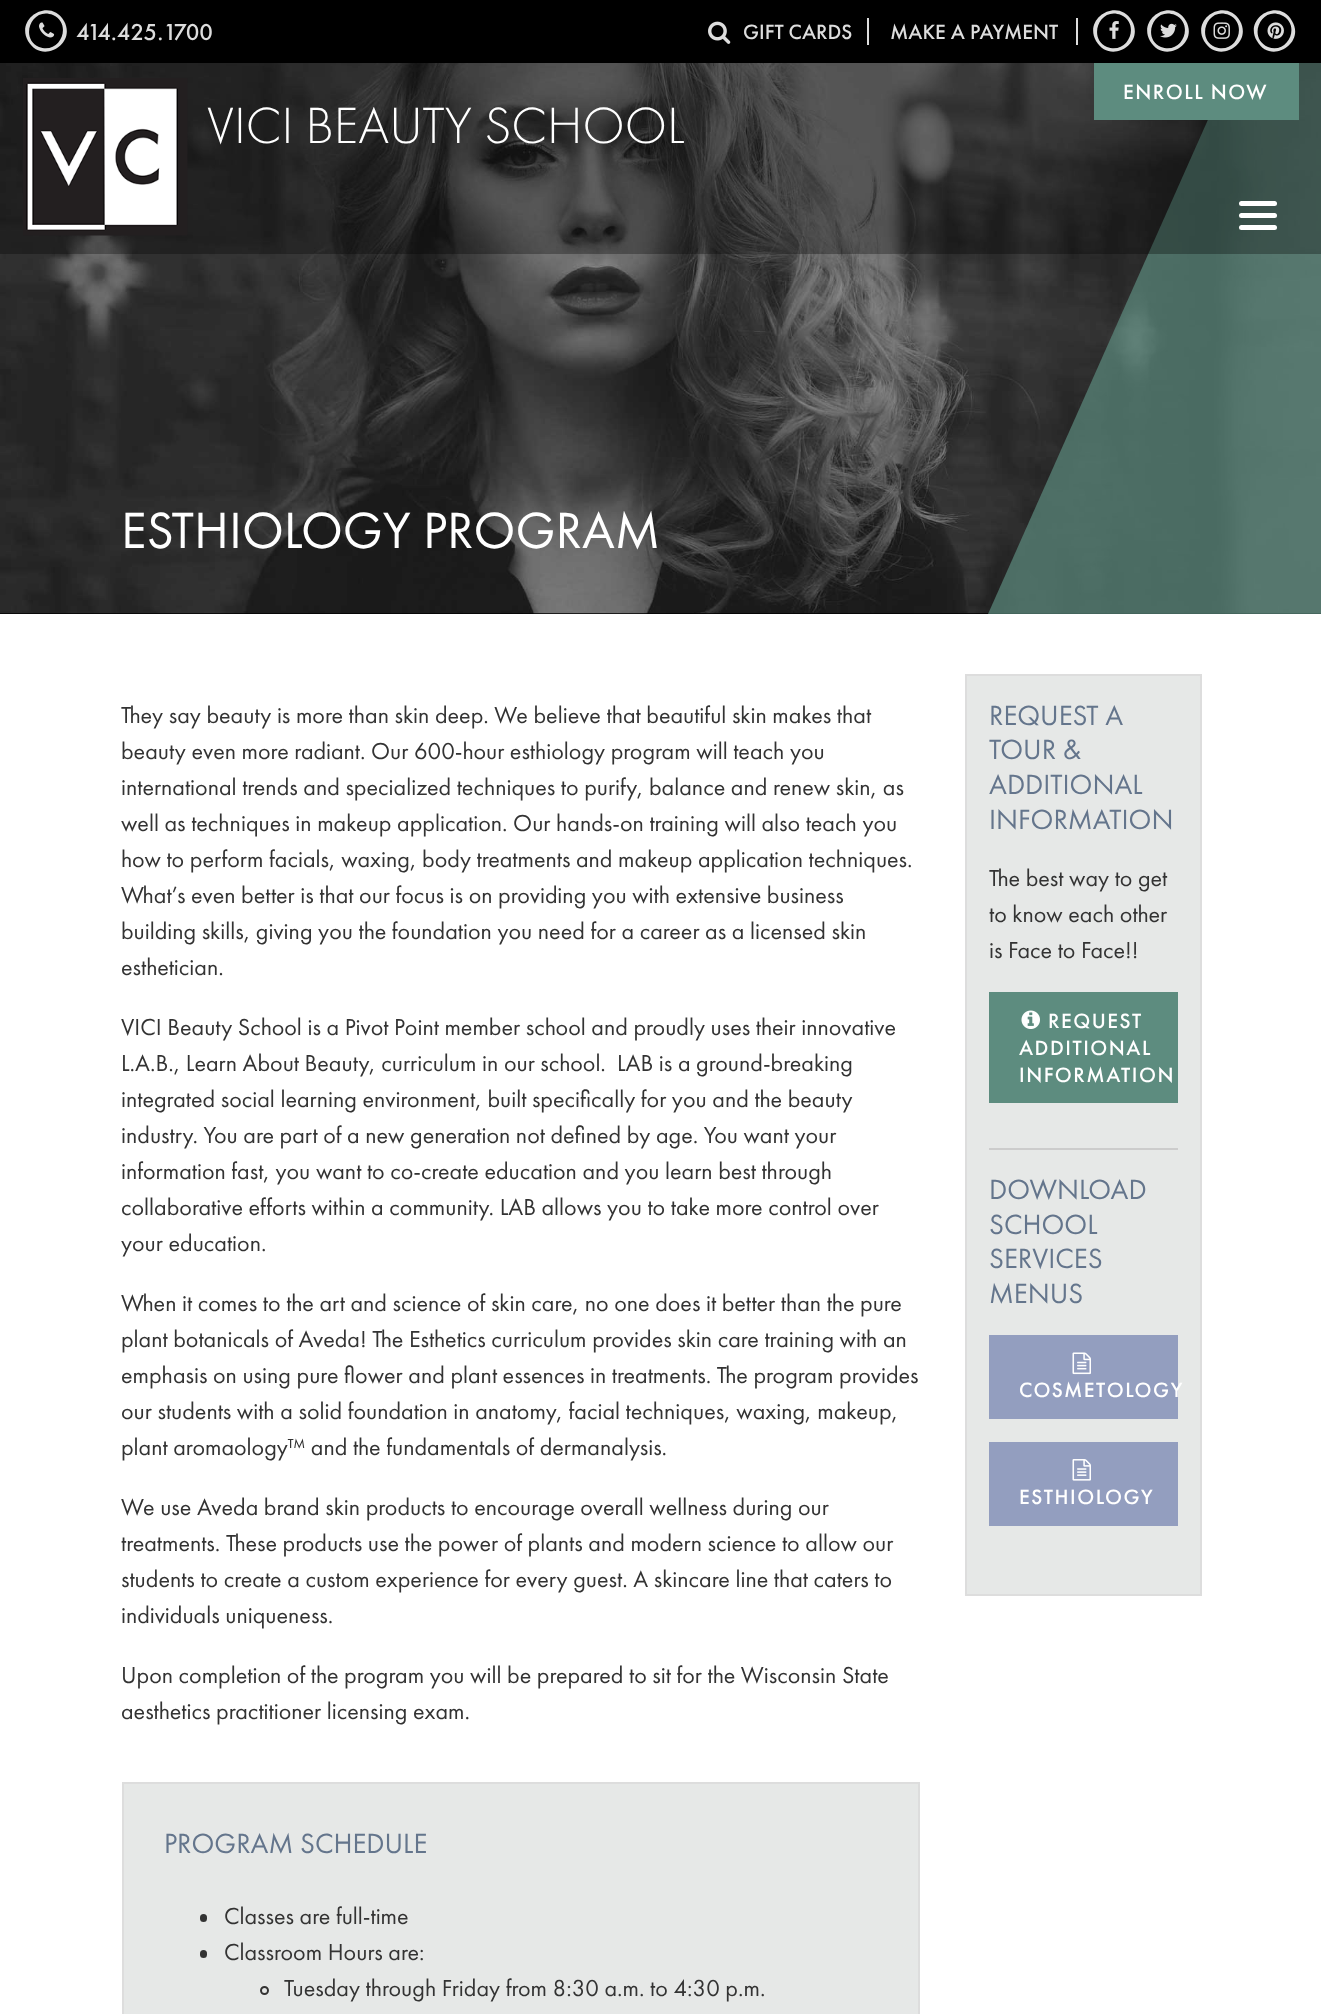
(async () => {
  const canvas = document.querySelector("canvas");
  canvas.width = 1321;
  canvas.height = 2014;
  const ctx = canvas.getContext("2d");
  ctx.miterLimit = 4;
  ctx.fontKerning = "normal";
  async function loadImage(src) {
    const img = new Image();
    img.src = src;
    await img.decode();
    return img;
  }
  let path;

  ctx.fillStyle = "#ffffff";
  ctx.fillRect(0, 0, 1321, 2014);
  ctx.fillStyle = "#000000";
  ctx.fillRect(0, 613, 1321, 1);
  ctx.drawImage(await loadImage("img/8.png"), 0, 63, 1321, 551);
  ctx.fillStyle = "rgba(93, 140, 127, 0.7)";
  path = new Path2D("M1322 14V614H988L1255 14Z");
  ctx.fill(path);
  ctx.fillStyle = "rgba(0, 0, 0, 0.3)";
  ctx.fillRect(0, 63, 1321, 191);
  ctx.fillStyle = "#000000";
  ctx.fillRect(0, 0, 1321, 63);
  ctx.fillStyle = "#dddddd";
  path = new Path2D("M53 15C32 6 19 38 39 47C60 55 73 24 53 15ZM64 21C77 44 42 65 28 41C15 18 50-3 64 21Z");
  ctx.fill(path);
  ctx.drawImage(await loadImage("img/1.png"), 39, 22, 16, 16);
  ctx.drawImage(await loadImage("img/2.png"), 708, 21, 23, 23);
  ctx.fillRect(867, 18, 2, 27);
  ctx.fillRect(1076, 18, 2, 27);
  path = new Path2D("M1121 15C1100 6 1087 38 1107 47C1128 55 1141 24 1121 15ZM1132 21C1145 44 1110 65 1096 41C1083 18 1118-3 1132 21Z");
  ctx.fill(path);
  ctx.drawImage(await loadImage("img/3.png"), 1109, 21, 10, 18);
  path = new Path2D("M1175 15C1154 6 1141 38 1161 47C1182 55 1195 24 1175 15ZM1186 21C1199 44 1164 65 1150 41C1137 18 1172-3 1186 21Z");
  ctx.fill(path);
  ctx.drawImage(await loadImage("img/4.png"), 1160, 23, 17, 15);
  path = new Path2D("M1229 15C1208 6 1195 38 1215 47C1236 55 1249 24 1229 15ZM1240 21C1253 44 1218 65 1204 41C1191 18 1226-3 1240 21Z");
  ctx.fill(path);
  ctx.drawImage(await loadImage("img/5.png"), 1213, 22, 17, 17);
  path = new Path2D("M1281 15C1261 6 1247 38 1268 47C1288 55 1302 24 1281 15ZM1292 21C1306 44 1270 65 1257 41C1243 18 1279-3 1292 21Z");
  ctx.fill(path);
  ctx.drawImage(await loadImage("img/6.png"), 1267, 22, 17, 17);
  ctx.drawImage(await loadImage("img/7.png"), 23, 78, 165, 158);
  ctx.fillStyle = "#5d8c7f";
  ctx.fillRect(1094, 63, 205, 57);
  ctx.fillStyle = "#ffffff";
  ctx.beginPath();
  ctx.roundRect(1239, 213, 38, 5, 2.5);
  ctx.fill();
  ctx.beginPath();
  ctx.roundRect(1239, 201, 38, 5, 2.5);
  ctx.fill();
  ctx.beginPath();
  ctx.roundRect(1239, 225, 38, 5, 2.5);
  ctx.fill();
  ctx.fillStyle = "#e6e8e7";
  ctx.beginPath();
  ctx.rect(123, 1783, 796, 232);
  ctx.fill();
  ctx.strokeStyle = "#dddddd";
  ctx.lineWidth = 2;
  ctx.stroke();
  ctx.fillStyle = "#333333";
  ctx.beginPath();
  ctx.roundRect(200, 1914, 7, 8, 3.5);
  ctx.fill();
  ctx.beginPath();
  ctx.roundRect(200, 1950, 7, 8, 3.5);
  ctx.fill();
  ctx.beginPath();
  ctx.arc(264.5, 1990.5, 3.5, 0, Math.PI * 2);
  ctx.strokeStyle = "#333333";
  ctx.stroke();
  ctx.fillStyle = "#e6e8e7";
  ctx.beginPath();
  ctx.rect(966, 675, 235, 920);
  ctx.fill();
  ctx.strokeStyle = "#dddddd";
  ctx.stroke();
  ctx.fillStyle = "#5d8c7f";
  ctx.fillRect(989, 992, 189, 111);
  ctx.drawImage(await loadImage("img/9.png"), 1021, 1010, 19, 19);
  ctx.fillStyle = "#cccccc";
  ctx.fillRect(989, 1148, 189, 2);
  ctx.fillStyle = "#939ebf";
  ctx.fillRect(989, 1335, 189, 84);
  ctx.drawImage(await loadImage("img/10.png"), 1072, 1352, 19, 23);
  ctx.fillRect(989, 1442, 189, 84);
  ctx.drawImage(await loadImage("img/11.png"), 1072, 1459, 19, 22);
  ctx.font = "500 24px Futura PT";
  ctx.fillStyle = "#dddddd";
  ctx.fillText("414.425.1700", 76, 40);
  ctx.font = "500 21.5px Futura PT";
  ctx.fillText("GIFT CARDS", 743, 39);
  ctx.fillText("MAKE A PAYMENT", 890, 39);
  ctx.letterSpacing = "1.5px";
  ctx.fillStyle = "#ffffff";
  ctx.fillText("ENROLL NOW", 1123, 99);
  ctx.letterSpacing = "0px";
  ctx.font = "300 52.75px Futura PT";
  ctx.fillText("VICI BEAUTY SCHOOL", 207, 143);
  ctx.font = "52.75px Futura PT";
  ctx.fillText("ESTHIOLOGY PROGRAM", 121, 548);
  ctx.font = "24px Futura PT";
  ctx.fillStyle = "#333333";
  for (const [text, x, y] of [
    ["They say beauty is more than skin deep. We believe that beautiful skin makes that", 121, 723],
    ["beauty even more radiant. Our 600-hour esthiology program will teach you", 121, 759],
    ["international trends and specialized techniques to purify, balance and renew skin, as", 121, 795],
    ["well as techniques in makeup application. Our hands-on training will also teach you", 121, 831],
    ["how to perform facials, waxing, body treatments and makeup application techniques.", 121, 867],
    ["What’s even better is that our focus is on providing you with extensive business", 121, 903],
    ["building skills, giving you the foundation you need for a career as a licensed skin", 121, 939],
    ["esthetician.", 121, 975],
    ["VICI Beauty School is a Pivot Point member school and proudly uses their innovative", 121, 1035],
    ["L.A.B., Learn About Beauty, curriculum in our school.  LAB is a ground-breaking", 121, 1071],
    ["integrated social learning environment, built specifically for you and the beauty", 121, 1107],
    ["industry. You are part of a new generation not defined by age. You want your", 121, 1143],
    ["information fast, you want to co-create education and you learn best through", 121, 1179],
    ["collaborative efforts within a community. LAB allows you to take more control over", 121, 1215],
    ["your education.", 121, 1251],
    ["When it comes to the art and science of skin care, no one does it better than the pure", 121, 1311],
    ["plant botanicals of Aveda! The Esthetics curriculum provides skin care training with an", 121, 1347],
    ["emphasis on using pure flower and plant essences in treatments. The program provides", 121, 1383],
    ["our students with a solid foundation in anatomy, facial techniques, waxing, makeup,", 121, 1419],
    ["plant aromaology™ and the fundamentals of dermanalysis.", 121, 1455],
    ["We use Aveda brand skin products to encourage overall wellness during our", 121, 1515],
    ["treatments. These products use the power of plants and modern science to allow our", 121, 1551],
    ["students to create a custom experience for every guest. A skincare line that caters to", 121, 1587],
    ["individuals uniqueness.", 121, 1623],
    ["Upon completion of the program you will be prepared to sit for the Wisconsin State", 121, 1683],
    ["aesthetics practitioner licensing exam.", 121, 1719],
  ]) {
    ctx.fillText(text, x, y);
  }
  ctx.font = "28.75px Futura PT";
  ctx.fillStyle = "#64758c";
  ctx.fillText("PROGRAM SCHEDULE", 164, 1853);
  ctx.font = "24px Futura PT";
  ctx.fillStyle = "#333333";
  for (const [text, x, y] of [
    ["Classes are full-time", 224, 1924],
    ["Classroom Hours are:", 224, 1960],
    ["Tuesday through Friday from 8:30 a.m. to 4:30 p.m.", 284, 1996],
  ]) {
    ctx.fillText(text, x, y);
  }
  ctx.font = "28.75px Futura PT";
  ctx.fillStyle = "#64758c";
  for (const [text, x, y] of [
    ["REQUEST A", 989, 725],
    ["TOUR &", 989, 759],
    ["ADDITIONAL", 989, 794],
    ["INFORMATION", 989, 829],
  ]) {
    ctx.fillText(text, x, y);
  }
  ctx.font = "24px Futura PT";
  ctx.fillStyle = "#333333";
  for (const [text, x, y] of [
    ["The best way to get", 989, 886],
    ["to know each other", 989, 922],
    ["is Face to Face!!", 989, 958],
  ]) {
    ctx.fillText(text, x, y);
  }
  ctx.letterSpacing = "1.5px";
  ctx.font = "500 21.5px Futura PT";
  ctx.fillStyle = "#ffffff";
  for (const [text, x, y] of [
    ["REQUEST", 1048, 1028],
    ["ADDITIONAL", 1019, 1055],
    ["INFORMATION", 1019, 1082],
  ]) {
    ctx.fillText(text, x, y);
  }
  ctx.letterSpacing = "0px";
  ctx.font = "28.75px Futura PT";
  ctx.fillStyle = "#64758c";
  for (const [text, x, y] of [
    ["DOWNLOAD", 989, 1199],
    ["SCHOOL", 989, 1234],
    ["SERVICES", 989, 1268],
    ["MENUS", 989, 1303],
  ]) {
    ctx.fillText(text, x, y);
  }
  ctx.letterSpacing = "1.5px";
  ctx.font = "500 21.5px Futura PT";
  ctx.fillStyle = "#ffffff";
  ctx.fillText("COSMETOLOGY", 1019, 1397);
  ctx.fillText("ESTHIOLOGY", 1019, 1504);
})();
